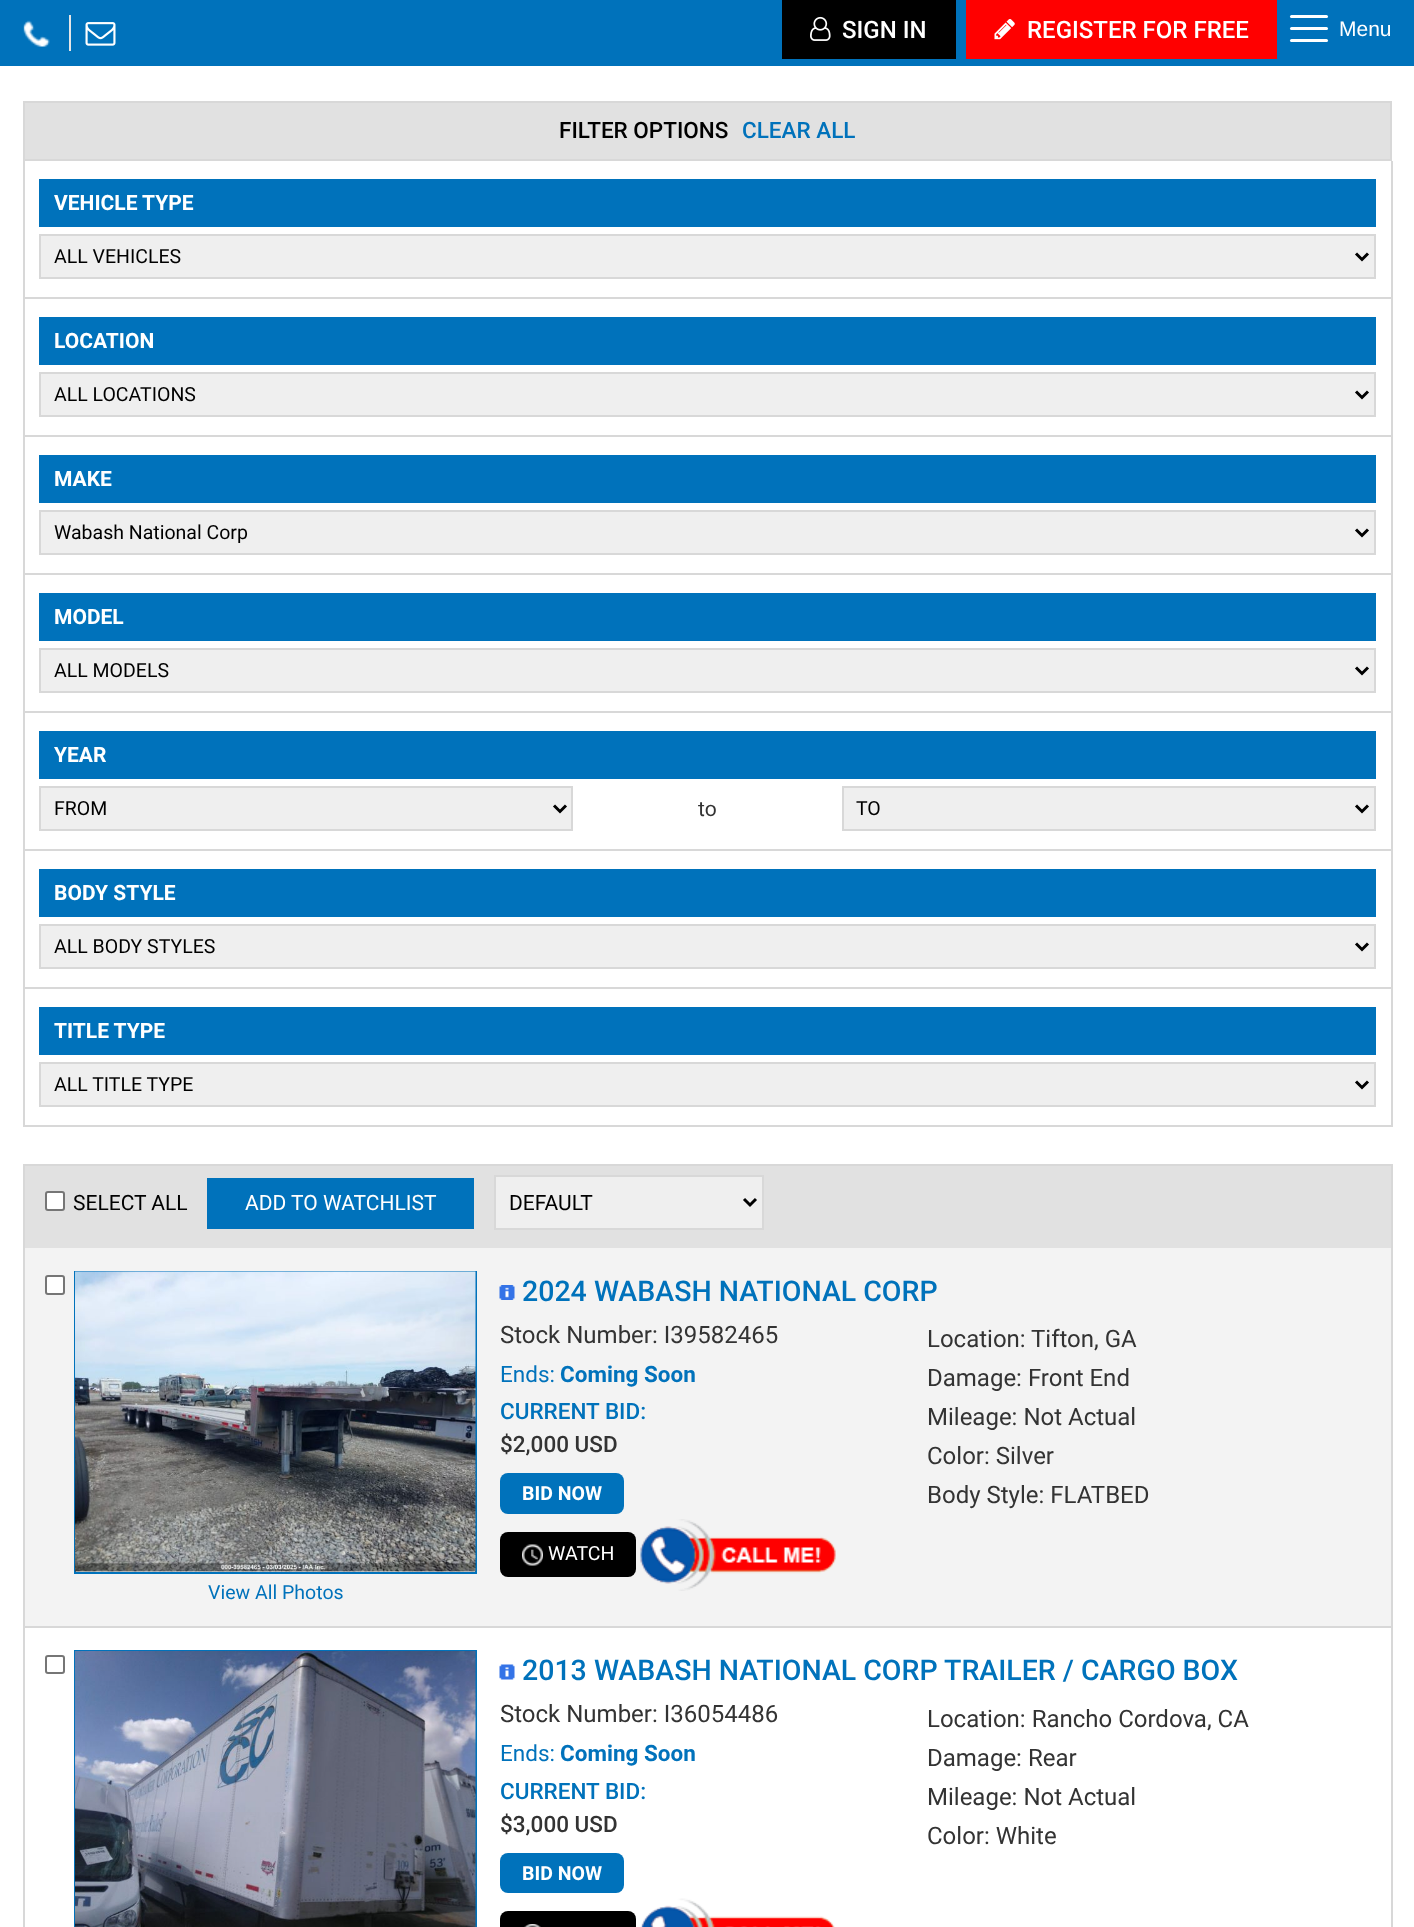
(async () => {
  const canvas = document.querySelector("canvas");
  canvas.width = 1414;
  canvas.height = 1927;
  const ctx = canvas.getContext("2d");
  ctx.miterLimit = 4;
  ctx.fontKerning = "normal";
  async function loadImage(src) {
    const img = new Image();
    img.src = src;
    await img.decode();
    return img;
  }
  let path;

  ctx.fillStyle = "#ffffff";
  ctx.fillRect(0, 0, 1414, 1927);
  ctx.fillStyle = "#0072bb";
  ctx.fillRect(0, 0, 1414, 66);
  ctx.drawImage(await loadImage("img/1.png"), 23, 20, 27, 27);
  ctx.fillStyle = "#e6e6e6";
  ctx.fillRect(69, 15, 2, 36);
  ctx.drawImage(await loadImage("img/2.png"), 85, 22, 31, 24);
  ctx.fillStyle = "#000000";
  ctx.fillRect(782, 0, 174, 59);
  ctx.drawImage(await loadImage("img/3.png"), 810, 16, 21, 25);
  ctx.fillStyle = "#ff0000";
  ctx.fillRect(966, 0, 311, 59);
  ctx.drawImage(await loadImage("img/4.png"), 994, 19, 21, 21);
  ctx.fillStyle = "#ffffff";
  ctx.beginPath();
  ctx.roundRect(1290, 15, 38, 3, 1.5);
  ctx.fill();
  ctx.beginPath();
  ctx.roundRect(1290, 27, 38, 3, 1.5);
  ctx.fill();
  ctx.beginPath();
  ctx.roundRect(1290, 39, 38, 3, 1.5);
  ctx.fill();
  ctx.fillStyle = "#e1e1e1";
  ctx.beginPath();
  ctx.rect(24, 102, 1367, 58);
  ctx.fill();
  ctx.strokeStyle = "#d8d8d8";
  ctx.lineWidth = 2;
  ctx.stroke();
  for (const [x, y, w, h, color] of [
    [1391, 161, 2, 966, "#d8d8d8"],
    [23, 297, 1369, 2, "#d8d8d8"],
    [23, 161, 2, 138, "#d8d8d8"],
    [39, 179, 1337, 48, "#0072bb"],
  ]) {
    ctx.fillStyle = color;
    ctx.fillRect(x, y, w, h);
  }
  ctx.fillStyle = "#efefef";
  ctx.beginPath();
  ctx.rect(40, 235, 1335, 43);
  ctx.fill();
  ctx.stroke();
  path = new Path2D("M1356 253.5L1362 259.5L1368 253.5");
  ctx.strokeStyle = "#000000";
  ctx.lineWidth = 3;
  ctx.stroke(path);
  for (const [x, y, w, h, color] of [
    [23, 435, 1369, 2, "#d8d8d8"],
    [23, 299, 2, 138, "#d8d8d8"],
    [39, 317, 1337, 48, "#0072bb"],
  ]) {
    ctx.fillStyle = color;
    ctx.fillRect(x, y, w, h);
  }
  ctx.fillStyle = "#efefef";
  ctx.beginPath();
  ctx.rect(40, 373, 1335, 43);
  ctx.fill();
  ctx.strokeStyle = "#d8d8d8";
  ctx.lineWidth = 2;
  ctx.stroke();
  path = new Path2D("M1356 391.5L1362 397.5L1368 391.5");
  ctx.strokeStyle = "#000000";
  ctx.lineWidth = 3;
  ctx.stroke(path);
  for (const [x, y, w, h, color] of [
    [23, 573, 1369, 2, "#d8d8d8"],
    [23, 437, 2, 138, "#d8d8d8"],
    [39, 455, 1337, 48, "#0072bb"],
  ]) {
    ctx.fillStyle = color;
    ctx.fillRect(x, y, w, h);
  }
  ctx.fillStyle = "#efefef";
  ctx.beginPath();
  ctx.rect(40, 511, 1335, 43);
  ctx.fill();
  ctx.strokeStyle = "#d8d8d8";
  ctx.lineWidth = 2;
  ctx.stroke();
  path = new Path2D("M1356 529.5L1362 535.5L1368 529.5");
  ctx.strokeStyle = "#000000";
  ctx.lineWidth = 3;
  ctx.stroke(path);
  for (const [x, y, w, h, color] of [
    [23, 711, 1369, 2, "#d8d8d8"],
    [23, 575, 2, 138, "#d8d8d8"],
    [39, 593, 1337, 48, "#0072bb"],
  ]) {
    ctx.fillStyle = color;
    ctx.fillRect(x, y, w, h);
  }
  ctx.fillStyle = "#efefef";
  ctx.beginPath();
  ctx.rect(40, 649, 1335, 43);
  ctx.fill();
  ctx.strokeStyle = "#d8d8d8";
  ctx.lineWidth = 2;
  ctx.stroke();
  path = new Path2D("M1356 667.5L1362 673.5L1368 667.5");
  ctx.strokeStyle = "#000000";
  ctx.lineWidth = 3;
  ctx.stroke(path);
  for (const [x, y, w, h, color] of [
    [23, 849, 1369, 2, "#d8d8d8"],
    [23, 713, 2, 138, "#d8d8d8"],
    [39, 731, 1337, 48, "#0072bb"],
  ]) {
    ctx.fillStyle = color;
    ctx.fillRect(x, y, w, h);
  }
  ctx.fillStyle = "#efefef";
  ctx.beginPath();
  ctx.rect(40, 787, 532, 43);
  ctx.fill();
  ctx.strokeStyle = "#d8d8d8";
  ctx.lineWidth = 2;
  ctx.stroke();
  path = new Path2D("M554 805.5L560 811.5L566 805.5");
  ctx.strokeStyle = "#000000";
  ctx.lineWidth = 3;
  ctx.stroke(path);
  ctx.beginPath();
  ctx.rect(843, 787, 532, 43);
  ctx.fill();
  ctx.strokeStyle = "#d8d8d8";
  ctx.lineWidth = 2;
  ctx.stroke();
  path = new Path2D("M1356 805.5L1362 811.5L1368 805.5");
  ctx.strokeStyle = "#000000";
  ctx.lineWidth = 3;
  ctx.stroke(path);
  for (const [x, y, w, h, color] of [
    [23, 987, 1369, 2, "#d8d8d8"],
    [23, 851, 2, 138, "#d8d8d8"],
    [39, 869, 1337, 48, "#0072bb"],
  ]) {
    ctx.fillStyle = color;
    ctx.fillRect(x, y, w, h);
  }
  ctx.fillStyle = "#efefef";
  ctx.beginPath();
  ctx.rect(40, 925, 1335, 43);
  ctx.fill();
  ctx.strokeStyle = "#d8d8d8";
  ctx.lineWidth = 2;
  ctx.stroke();
  path = new Path2D("M1356 943.5L1362 949.5L1368 943.5");
  ctx.strokeStyle = "#000000";
  ctx.lineWidth = 3;
  ctx.stroke(path);
  for (const [x, y, w, h, color] of [
    [23, 1125, 1369, 2, "#d8d8d8"],
    [23, 989, 2, 138, "#d8d8d8"],
    [39, 1007, 1337, 48, "#0072bb"],
  ]) {
    ctx.fillStyle = color;
    ctx.fillRect(x, y, w, h);
  }
  ctx.fillStyle = "#efefef";
  ctx.beginPath();
  ctx.rect(40, 1063, 1335, 43);
  ctx.fill();
  ctx.strokeStyle = "#d8d8d8";
  ctx.lineWidth = 2;
  ctx.stroke();
  path = new Path2D("M1356 1081.5L1362 1087.5L1368 1081.5");
  ctx.strokeStyle = "#000000";
  ctx.lineWidth = 3;
  ctx.stroke(path);
  for (const [x, y, w, h, color] of [
    [25, 1166, 1366, 82, "#e1e1e1"],
    [23, 1164, 1369, 2, "#d8d8d8"],
    [1391, 1164, 2, 763, "#d8d8d8"],
    [23, 1164, 2, 84, "#d8d8d8"],
  ]) {
    ctx.fillStyle = color;
    ctx.fillRect(x, y, w, h);
  }
  ctx.fillStyle = "#ffffff";
  ctx.beginPath();
  ctx.roundRect(46, 1192, 18, 18, 2);
  ctx.fill();
  ctx.strokeStyle = "#767676";
  ctx.lineWidth = 2;
  ctx.stroke();
  ctx.fillStyle = "#0072bb";
  ctx.fillRect(207, 1178, 267, 51);
  ctx.fillStyle = "#efefef";
  ctx.beginPath();
  ctx.rect(495, 1176, 268, 53);
  ctx.fill();
  ctx.strokeStyle = "#d8d8d8";
  ctx.stroke();
  path = new Path2D("M744 1199L750 1205L756 1199");
  ctx.strokeStyle = "#000000";
  ctx.lineWidth = 3;
  ctx.stroke(path);
  for (const [x, y, w, h, color] of [
    [25, 1248, 1366, 378, "#f3f3f3"],
    [23, 1626, 1369, 2, "#d8d8d8"],
    [23, 1248, 2, 679, "#d8d8d8"],
  ]) {
    ctx.fillStyle = color;
    ctx.fillRect(x, y, w, h);
  }
  ctx.fillStyle = "#ffffff";
  ctx.beginPath();
  ctx.roundRect(46, 1276, 18, 18, 2);
  ctx.fill();
  ctx.strokeStyle = "#767676";
  ctx.lineWidth = 2;
  ctx.stroke();
  ctx.drawImage(await loadImage("img/5.png"), 499, 1285, 16, 15);
  ctx.fillStyle = "#0072bb";
  ctx.beginPath();
  ctx.roundRect(500, 1473, 124, 41, 8);
  ctx.fill();
  ctx.fillStyle = "#000000";
  ctx.beginPath();
  ctx.roundRect(500, 1532, 136, 45, 8);
  ctx.fill();
  ctx.drawImage(await loadImage("img/6.png"), 522, 1544, 21, 22);
  ctx.drawImage(await loadImage("img/7.png"), 640, 1519, 196, 72);
  ctx.fillStyle = "#ffffff";
  ctx.fillRect(76, 1571, 399, 1);
  ctx.strokeStyle = "#0072bb";
  ctx.strokeRect(75, 1272, 401, 301);
  ctx.drawImage(await loadImage("img/8.png"), 75, 1271, 401, 301);
  ctx.beginPath();
  ctx.roundRect(46, 1656, 18, 17, 2);
  ctx.strokeStyle = "#767676";
  ctx.stroke();
  ctx.strokeStyle = "#0072bb";
  ctx.strokeRect(75, 1651, 401, 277);
  ctx.drawImage(await loadImage("img/9.png"), 75, 1651, 401, 276);
  ctx.drawImage(await loadImage("img/10.png"), 499, 1664, 16, 16);
  ctx.fillStyle = "#0072bb";
  ctx.beginPath();
  ctx.roundRect(500, 1853, 124, 40, 8);
  ctx.fill();
  ctx.fillStyle = "#000000";
  ctx.beginPath();
  ctx.roundRect(500, 1911, 136, 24, 8);
  ctx.fill();
  ctx.drawImage(await loadImage("img/11.png"), 524, 1924, 17, 3);
  ctx.drawImage(await loadImage("img/12.png"), 640, 1898, 195, 29);
  ctx.font = "500 24px Roboto";
  ctx.fillStyle = "#ffffff";
  ctx.fillText("SIGN IN", 842, 38);
  ctx.fillText("REGISTER FOR FREE", 1027, 38);
  ctx.font = "21px Liberation Sans";
  ctx.fillText("Menu", 1339, 36);
  ctx.font = "500 22.5px Roboto";
  ctx.fillStyle = "#000000";
  ctx.fillText("FILTER OPTIONS", 559, 138);
  ctx.fillStyle = "#0072bb";
  ctx.fillText("CLEAR ALL", 742, 138);
  ctx.font = "bold 21px Roboto";
  ctx.fillStyle = "#ffffff";
  ctx.fillText("VEHICLE TYPE", 54, 210);
  ctx.font = "19.5px Roboto";
  ctx.fillStyle = "#000000";
  ctx.fillText("ALL VEHICLES", 54, 263);
  ctx.font = "bold 21px Roboto";
  ctx.fillStyle = "#ffffff";
  ctx.fillText("LOCATION", 54, 348);
  ctx.font = "19.5px Roboto";
  ctx.fillStyle = "#000000";
  ctx.fillText("ALL LOCATIONS", 54, 401);
  ctx.font = "bold 21px Roboto";
  ctx.fillStyle = "#ffffff";
  ctx.fillText("MAKE", 54, 486);
  ctx.font = "19.5px Roboto";
  ctx.fillStyle = "#000000";
  ctx.fillText("Wabash National Corp", 54, 539);
  ctx.font = "bold 21px Roboto";
  ctx.fillStyle = "#ffffff";
  ctx.fillText("MODEL", 54, 624);
  ctx.font = "19.5px Roboto";
  ctx.fillStyle = "#000000";
  ctx.fillText("ALL MODELS", 54, 677);
  ctx.font = "bold 21px Roboto";
  ctx.fillStyle = "#ffffff";
  ctx.fillText("YEAR", 54, 762);
  ctx.font = "19.5px Roboto";
  ctx.fillStyle = "#000000";
  ctx.fillText("FROM", 54, 815);
  ctx.font = "21px Roboto";
  ctx.fillStyle = "#333333";
  ctx.fillText("to", 698, 816);
  ctx.font = "19.5px Roboto";
  ctx.fillStyle = "#000000";
  ctx.fillText("TO", 856, 815);
  ctx.font = "bold 21px Roboto";
  ctx.fillStyle = "#ffffff";
  ctx.fillText("BODY STYLE", 54, 900);
  ctx.font = "19.5px Roboto";
  ctx.fillStyle = "#000000";
  ctx.fillText("ALL BODY STYLES", 54, 953);
  ctx.font = "bold 21px Roboto";
  ctx.fillStyle = "#ffffff";
  ctx.fillText("TITLE TYPE", 54, 1038);
  ctx.font = "19.5px Roboto";
  ctx.fillStyle = "#000000";
  ctx.fillText("ALL TITLE TYPE", 54, 1091);
  ctx.font = "21px Roboto";
  ctx.fillText("SELECT ALL", 73, 1210);
  ctx.fillStyle = "#ffffff";
  ctx.fillText("ADD TO WATCHLIST", 245, 1210);
  ctx.fillStyle = "#000000";
  ctx.fillText("DEFAULT", 509, 1210);
  ctx.font = "500 28.5px Roboto";
  ctx.fillStyle = "#0072bb";
  ctx.fillText("2024 WABASH NATIONAL CORP", 522, 1301);
  ctx.font = "24px Roboto";
  ctx.fillStyle = "#333333";
  ctx.fillText("Stock Number: I39582465", 500, 1343);
  ctx.font = "22.5px Roboto";
  ctx.fillStyle = "#0072bb";
  ctx.fillText("Ends:", 500, 1382);
  ctx.font = "bold 22.5px Roboto";
  ctx.fillText("Coming Soon", 560, 1382);
  ctx.font = "500 22.5px Roboto";
  ctx.fillText("CURRENT BID:", 500, 1419);
  ctx.fillStyle = "#333333";
  ctx.fillText("$2,000 USD", 500, 1452);
  ctx.font = "bold 19.5px Roboto";
  ctx.fillStyle = "#ffffff";
  ctx.fillText("BID NOW", 522, 1500);
  ctx.font = "19.5px Roboto";
  ctx.fillText("WATCH", 548, 1560);
  ctx.font = "24px Roboto";
  ctx.fillStyle = "#333333";
  for (const [text, x, y] of [
    ["Location:", 927, 1347],
    ["Tifton, GA", 1031, 1347],
    ["Damage: Front End", 927, 1386],
    ["Mileage: Not Actual", 927, 1425],
    ["Color: Silver", 927, 1464],
    ["Body Style: FLATBED", 927, 1503],
  ]) {
    ctx.fillText(text, x, y);
  }
  ctx.font = "19.5px Roboto";
  ctx.fillStyle = "#0072bb";
  ctx.fillText("View All Photos", 208, 1599);
  ctx.font = "500 28.5px Roboto";
  ctx.fillText("2013 WABASH NATIONAL CORP TRAILER / CARGO BOX", 522, 1680);
  ctx.font = "24px Roboto";
  ctx.fillStyle = "#333333";
  ctx.fillText("Stock Number: I36054486", 500, 1722);
  ctx.font = "22.5px Roboto";
  ctx.fillStyle = "#0072bb";
  ctx.fillText("Ends:", 500, 1761);
  ctx.font = "bold 22.5px Roboto";
  ctx.fillText("Coming Soon", 560, 1761);
  ctx.font = "500 22.5px Roboto";
  ctx.fillText("CURRENT BID:", 500, 1799);
  ctx.fillStyle = "#333333";
  ctx.fillText("$3,000 USD", 500, 1832);
  ctx.font = "bold 19.5px Roboto";
  ctx.fillStyle = "#ffffff";
  ctx.fillText("BID NOW", 522, 1880);
  ctx.font = "24px Roboto";
  ctx.fillStyle = "#333333";
  for (const [text, x, y] of [
    ["Location: Rancho Cordova, CA", 927, 1727],
    ["Damage: Rear", 927, 1766],
    ["Mileage: Not Actual", 927, 1805],
    ["Color: White", 927, 1844],
  ]) {
    ctx.fillText(text, x, y);
  }
})();
